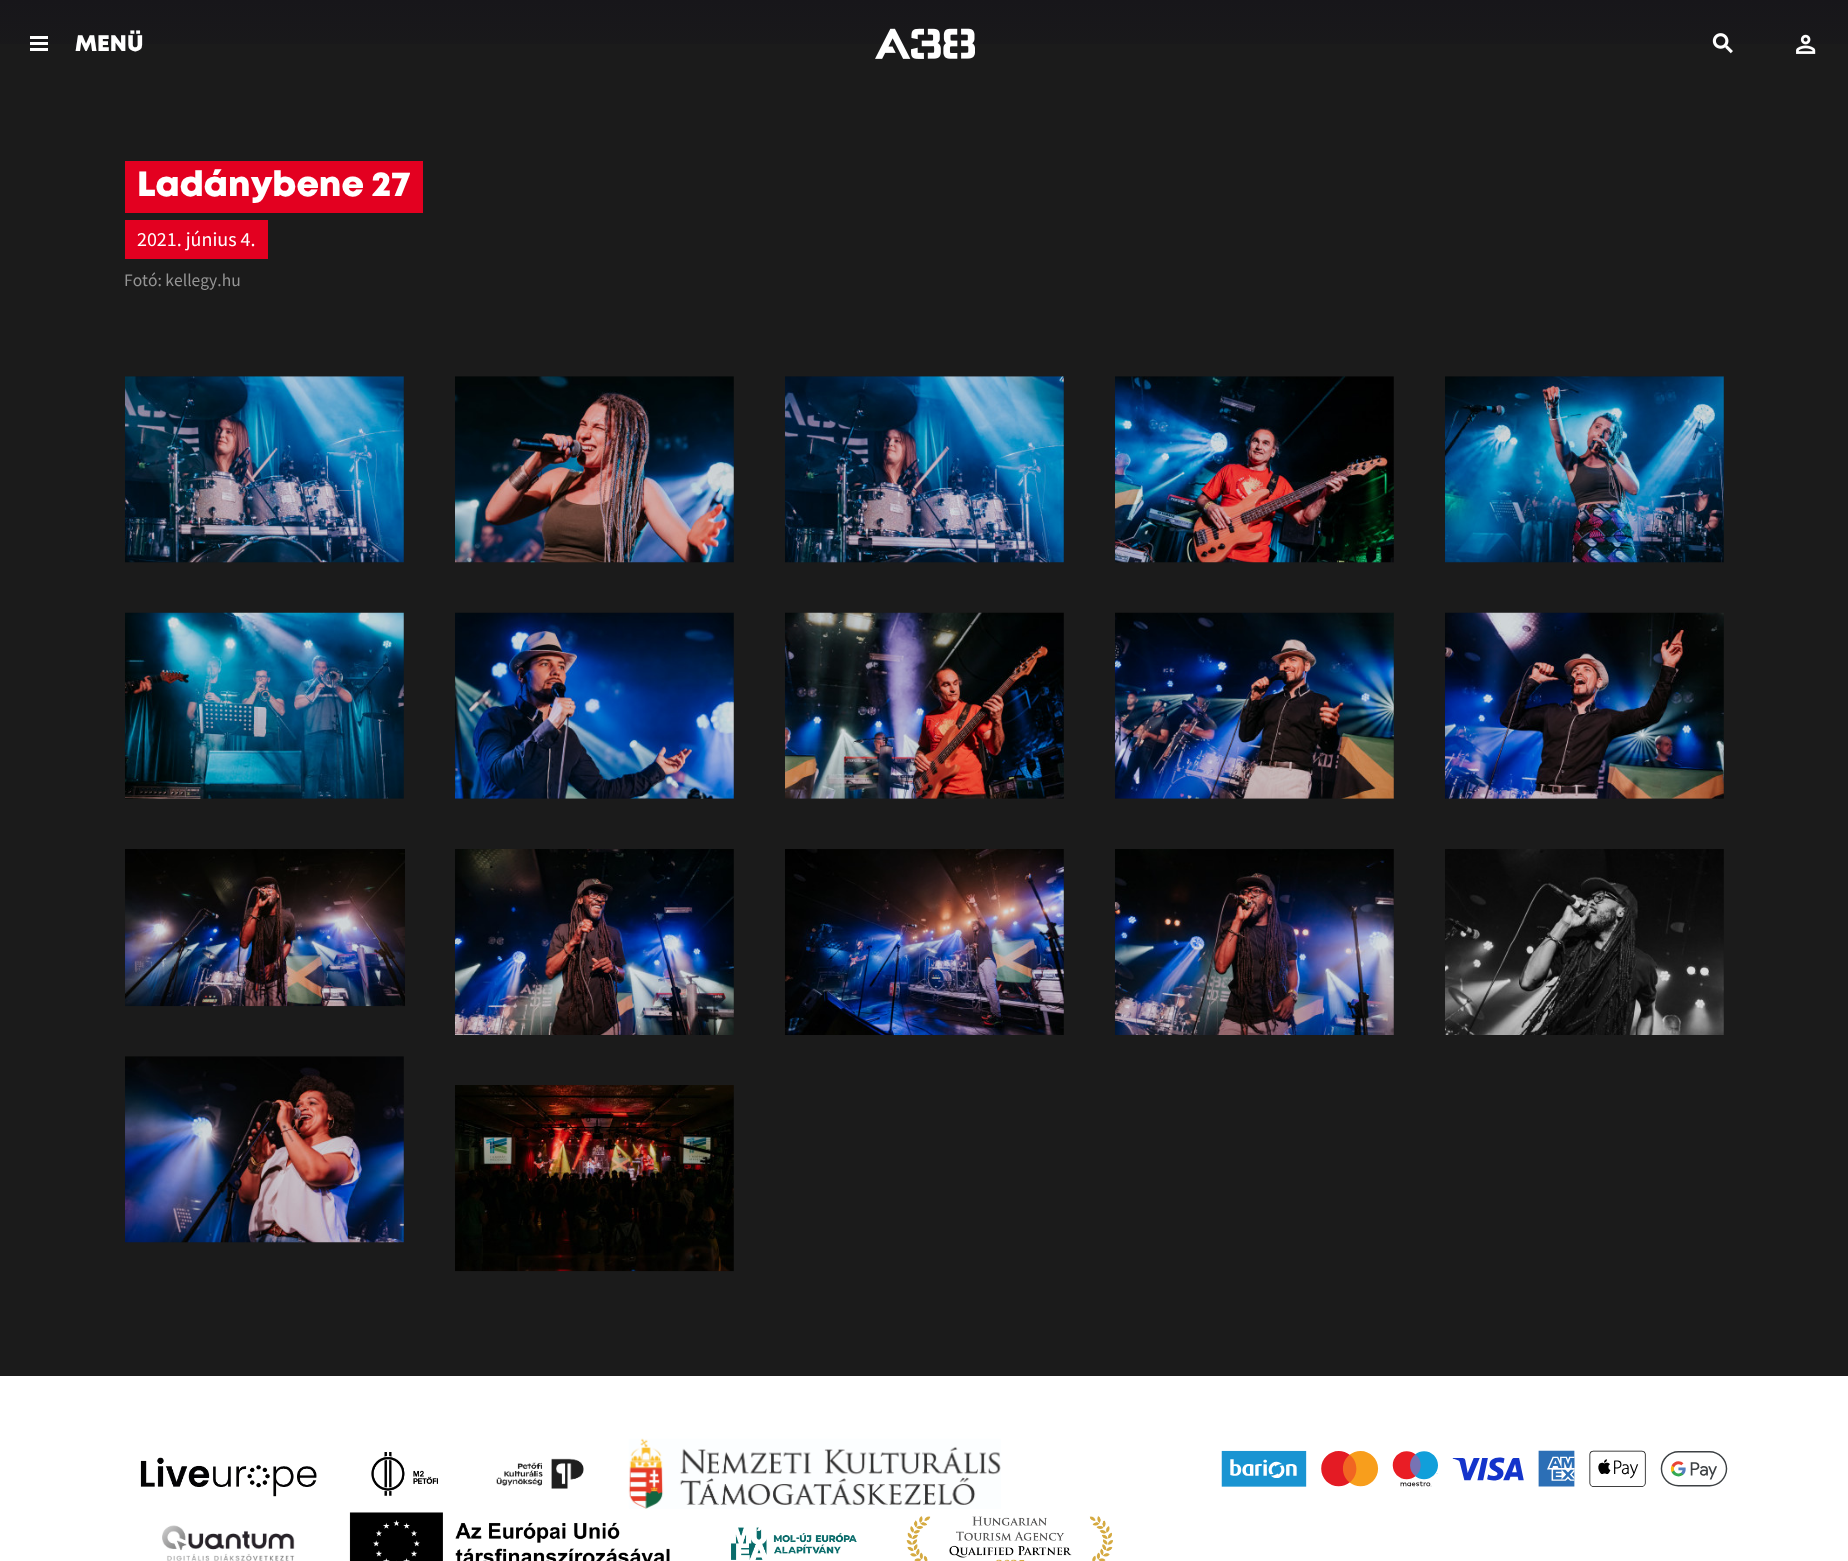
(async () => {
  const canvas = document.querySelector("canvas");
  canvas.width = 1848;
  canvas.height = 1561;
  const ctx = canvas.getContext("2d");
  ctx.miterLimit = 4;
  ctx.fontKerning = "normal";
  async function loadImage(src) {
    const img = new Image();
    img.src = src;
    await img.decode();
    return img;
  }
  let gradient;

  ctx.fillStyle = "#1b1b1b";
  ctx.fillRect(0, 0, 1848, 1561);
  gradient = ctx.createLinearGradient(924, 0, 924, 88);
  gradient.addColorStop(0, "#17161a");
  gradient.addColorStop(1, "#1b1b1b");
  ctx.fillStyle = gradient;
  ctx.fillRect(0, 0, 1848, 44);
  for (const [x, y, w, h, color] of [
    [30, 36, 18, 3, "#ffffff"],
    [30, 42, 18, 3, "#ffffff"],
    [30, 48, 18, 3, "#ffffff"],
  ]) {
    ctx.fillStyle = color;
    ctx.fillRect(x, y, w, h);
  }
  ctx.drawImage(await loadImage("img/1.png"), 875, 28, 100, 31);
  ctx.drawImage(await loadImage("img/2.png"), 1712, 33, 21, 21);
  ctx.drawImage(await loadImage("img/3.png"), 1796, 34, 20, 20);
  ctx.fillStyle = "#e30020";
  ctx.fillRect(125, 161, 298, 52);
  ctx.fillRect(125, 220, 143, 39);
  ctx.drawImage(await loadImage("img/4.png"), 125, 376, 279, 187);
  ctx.drawImage(await loadImage("img/5.png"), 455, 376, 279, 187);
  ctx.drawImage(await loadImage("img/6.png"), 785, 376, 279, 187);
  ctx.drawImage(await loadImage("img/7.png"), 1115, 376, 279, 187);
  ctx.drawImage(await loadImage("img/8.png"), 1445, 376, 279, 187);
  ctx.drawImage(await loadImage("img/9.png"), 125, 612, 279, 187);
  ctx.drawImage(await loadImage("img/10.png"), 455, 612, 279, 187);
  ctx.drawImage(await loadImage("img/11.png"), 785, 612, 279, 187);
  ctx.drawImage(await loadImage("img/12.png"), 1115, 612, 279, 187);
  ctx.drawImage(await loadImage("img/13.png"), 1445, 612, 279, 187);
  ctx.drawImage(await loadImage("img/14.png"), 125, 849, 280, 158);
  ctx.drawImage(await loadImage("img/15.png"), 455, 849, 279, 186);
  ctx.drawImage(await loadImage("img/16.png"), 785, 849, 279, 186);
  ctx.drawImage(await loadImage("img/17.png"), 1115, 849, 279, 186);
  ctx.drawImage(await loadImage("img/18.png"), 1445, 849, 279, 186);
  ctx.drawImage(await loadImage("img/19.png"), 125, 1056, 279, 187);
  ctx.drawImage(await loadImage("img/20.png"), 455, 1085, 279, 187);
  ctx.fillStyle = "#ffffff";
  ctx.fillRect(0, 1376, 1848, 185);
  ctx.drawImage(await loadImage("img/21.png"), 140, 1457, 177, 40);
  ctx.drawImage(await loadImage("img/22.png"), 371, 1452, 67, 44);
  ctx.drawImage(await loadImage("img/23.png"), 496, 1458, 88, 31);
  ctx.drawImage(await loadImage("img/24.png"), 628, 1438, 373, 71);
  ctx.drawImage(await loadImage("img/25.png"), 162, 1525, 133, 36);
  ctx.drawImage(await loadImage("img/26.png"), 349, 1512, 321, 49);
  ctx.drawImage(await loadImage("img/27.png"), 731, 1527, 126, 33);
  ctx.drawImage(await loadImage("img/28.png"), 906, 1516, 207, 45);
  ctx.drawImage(await loadImage("img/29.png"), 1221, 1450, 507, 37);
  ctx.font = "22.5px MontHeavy";
  ctx.fillText("MENÜ", 75, 51);
  ctx.font = "35px MontHeavy";
  ctx.fillText("Ladánybene 27", 137, 196);
  ctx.font = "20px Source Sans Pro";
  ctx.fillText("2021. június 4.", 137, 246);
  ctx.font = "17.5px Source Sans Pro";
  ctx.fillStyle = "#959595";
  ctx.fillText("Fotó: kellegy.hu", 124, 286);
})();
